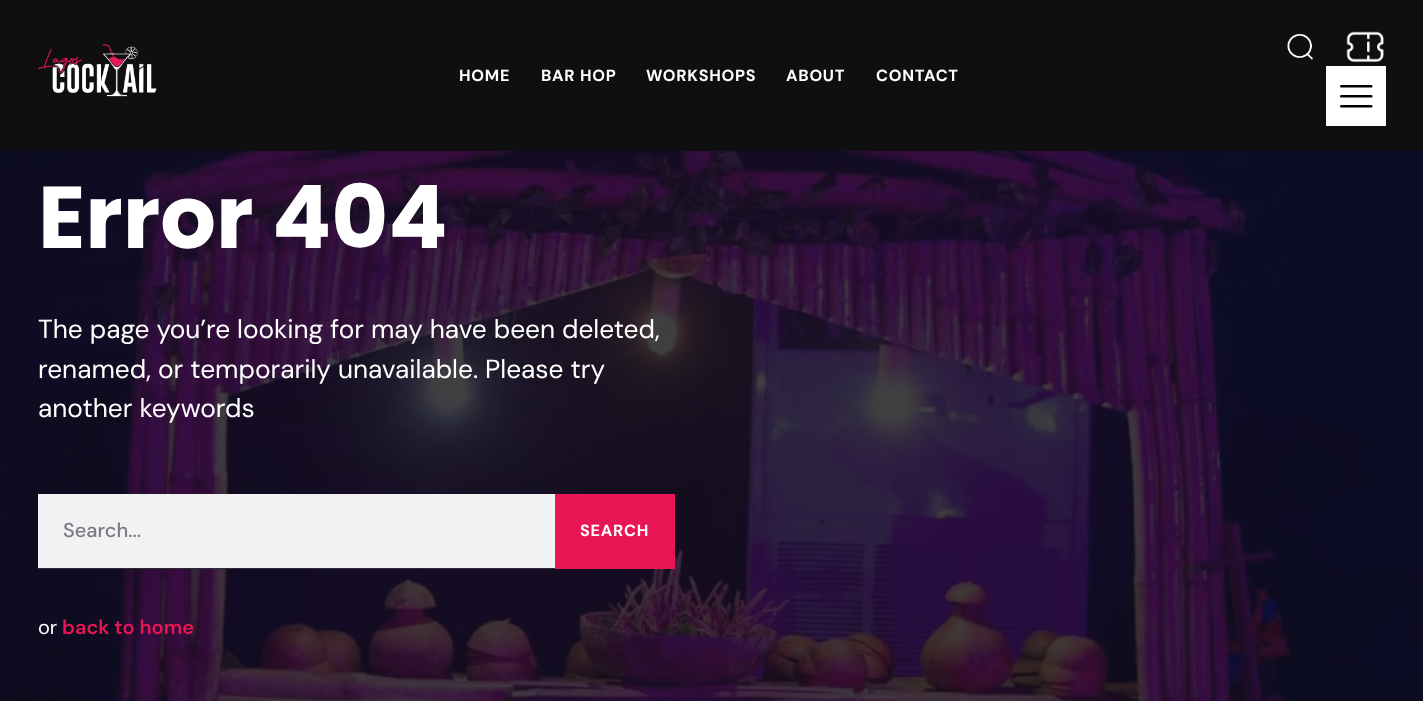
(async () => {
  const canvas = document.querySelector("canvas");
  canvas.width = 1423;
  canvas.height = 701;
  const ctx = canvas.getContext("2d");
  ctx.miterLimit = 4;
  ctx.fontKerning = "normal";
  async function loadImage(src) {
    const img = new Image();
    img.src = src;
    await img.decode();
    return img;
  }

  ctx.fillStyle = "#ffffff";
  ctx.fillRect(0, 0, 1423, 701);
  ctx.fillStyle = "#0f0f12";
  ctx.fillRect(0, 0, 1423, 151);
  ctx.drawImage(await loadImage("img/1.png"), 38, 44, 119, 53);
  ctx.drawImage(await loadImage("img/2.png"), 1287, 33, 26, 27);
  ctx.drawImage(await loadImage("img/3.png"), 1346, 31, 38, 31);
  ctx.fillStyle = "#ffffff";
  ctx.fillRect(1326, 66, 60, 60);
  ctx.drawImage(await loadImage("img/4.png"), 1340, 85, 33, 23);
  ctx.drawImage(await loadImage("img/5.png"), 0, 151, 1423, 550);
  for (const [x, y, w, h, color] of [
    [38, 494, 517, 74, "#f1f2f3"],
    [38, 568, 517, 1, "#2b2c33"],
    [555, 494, 120, 75, "#ea1554"],
  ]) {
    ctx.fillStyle = color;
    ctx.fillRect(x, y, w, h);
  }
  ctx.letterSpacing = "0.75px";
  ctx.font = "bold 16.25px DM Sans";
  ctx.fillStyle = "#ffffff";
  for (const [text, x, y] of [
    ["HOME", 459, 81],
    ["BAR HOP", 541, 81],
    ["WORKSHOPS", 646, 81],
    ["ABOUT", 786, 81],
    ["CONTACT", 876, 81],
  ]) {
    ctx.fillText(text, x, y);
  }
  ctx.letterSpacing = "0px";
  ctx.font = "bold 87.5px Poppins";
  ctx.fillText("Error 404", 38, 248);
  ctx.font = "26.25px DM Sans";
  for (const [text, x, y] of [
    ["The page you’re looking for may have been deleted,", 38, 338],
    ["renamed, or temporarily unavailable. Please try", 38, 378],
    ["another keywords", 38, 417],
  ]) {
    ctx.fillText(text, x, y);
  }
  ctx.font = "500 20px DM Sans";
  ctx.fillStyle = "#7a7b80";
  ctx.fillText("Search...", 63, 537);
  ctx.letterSpacing = "0.75px";
  ctx.font = "bold 16.25px DM Sans";
  ctx.fillStyle = "#ffffff";
  ctx.fillText("SEARCH", 580, 536);
  ctx.letterSpacing = "0px";
  ctx.font = "20px DM Sans";
  ctx.fillText("or", 38, 634);
  ctx.font = "600 20px DM Sans";
  ctx.fillStyle = "#ea1554";
  ctx.fillText("back to home", 62, 634);
})();
